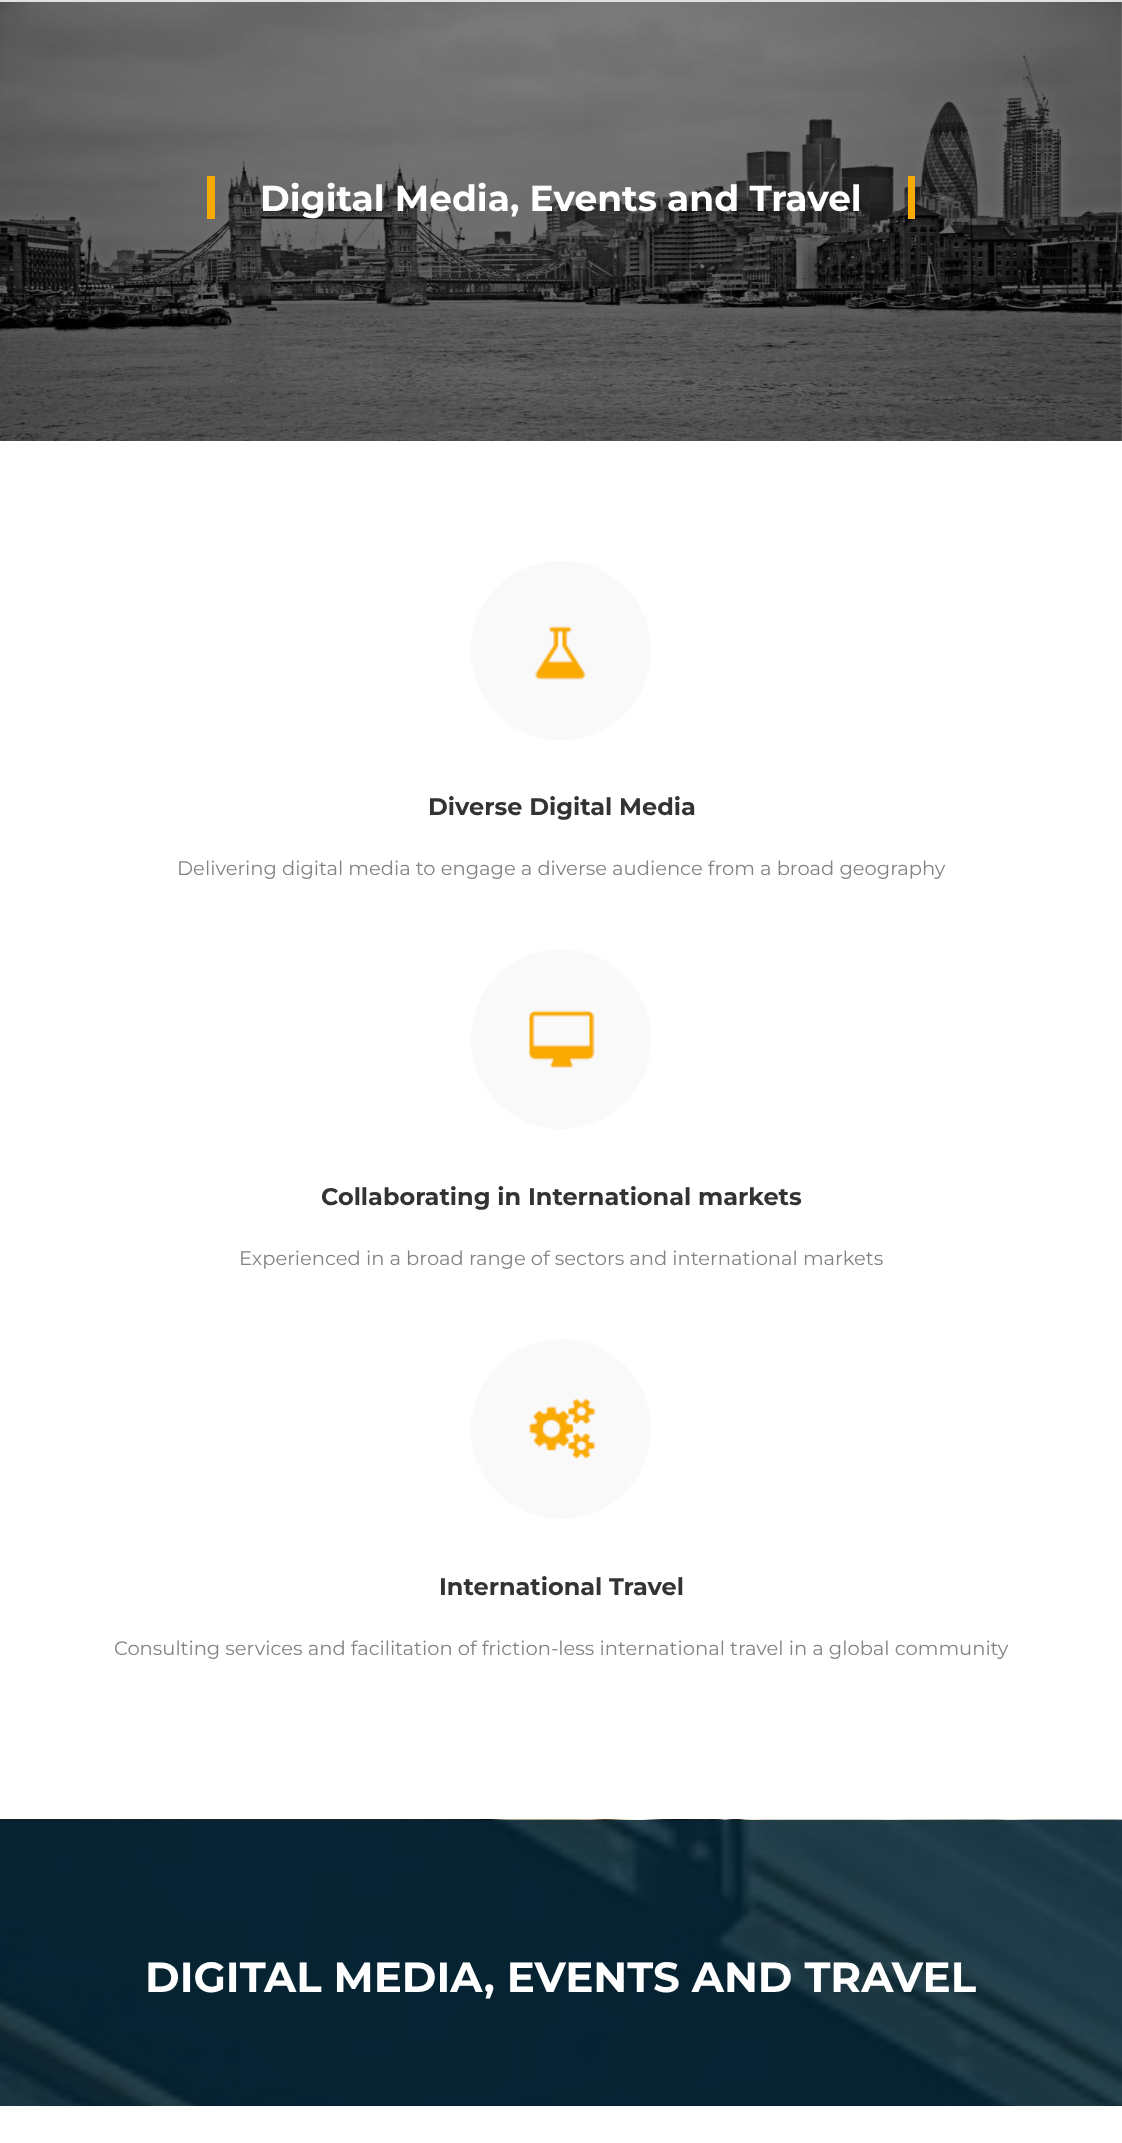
(async () => {
  const canvas = document.querySelector("canvas");
  canvas.width = 1122;
  canvas.height = 2143;
  const ctx = canvas.getContext("2d");
  ctx.miterLimit = 4;
  ctx.fontKerning = "normal";
  async function loadImage(src) {
    const img = new Image();
    img.src = src;
    await img.decode();
    return img;
  }

  ctx.fillStyle = "#ffffff";
  ctx.fillRect(0, 0, 1122, 2143);
  ctx.fillStyle = "#e1e1e1";
  ctx.fillRect(0, 0, 1122, 2);
  ctx.drawImage(await loadImage("img/1.png"), 0, 2, 1122, 439);
  ctx.fillStyle = "#f9ab03";
  ctx.fillRect(207, 176, 8, 43);
  ctx.fillRect(908, 176, 7, 43);
  ctx.drawImage(await loadImage("img/2.png"), 471, 561, 180, 179);
  ctx.drawImage(await loadImage("img/3.png"), 471, 949, 180, 180);
  ctx.drawImage(await loadImage("img/4.png"), 471, 1339, 180, 180);
  ctx.drawImage(await loadImage("img/5.png"), 0, 1819, 1122, 287);
  ctx.font = "bold 36px Montserrat";
  ctx.fillStyle = "#ffffff";
  ctx.fillText("Digital Media, Events and Travel", 260, 211);
  ctx.font = "bold 24px Montserrat";
  ctx.fillStyle = "#333333";
  ctx.fillText("Diverse Digital Media", 428, 815);
  ctx.font = "19.5px Montserrat";
  ctx.fillStyle = "#838383";
  ctx.fillText("Delivering digital media to engage a diverse audience from a broad geography", 177, 875);
  ctx.font = "bold 24px Montserrat";
  ctx.fillStyle = "#333333";
  ctx.fillText("Collaborating in International markets", 321, 1205);
  ctx.font = "19.5px Montserrat";
  ctx.fillStyle = "#838383";
  ctx.fillText("Experienced in a broad range of sectors and international markets", 239, 1265);
  ctx.font = "bold 24px Montserrat";
  ctx.fillStyle = "#333333";
  ctx.fillText("International Travel", 439, 1595);
  ctx.font = "19.5px Montserrat";
  ctx.fillStyle = "#838383";
  ctx.fillText("Consulting services and facilitation of friction-less international travel in a global community", 114, 1655);
  ctx.font = "bold 42px Montserrat";
  ctx.fillStyle = "#ffffff";
  ctx.fillText("DIGITAL MEDIA, EVENTS AND TRAVEL", 145, 1992);
})();
